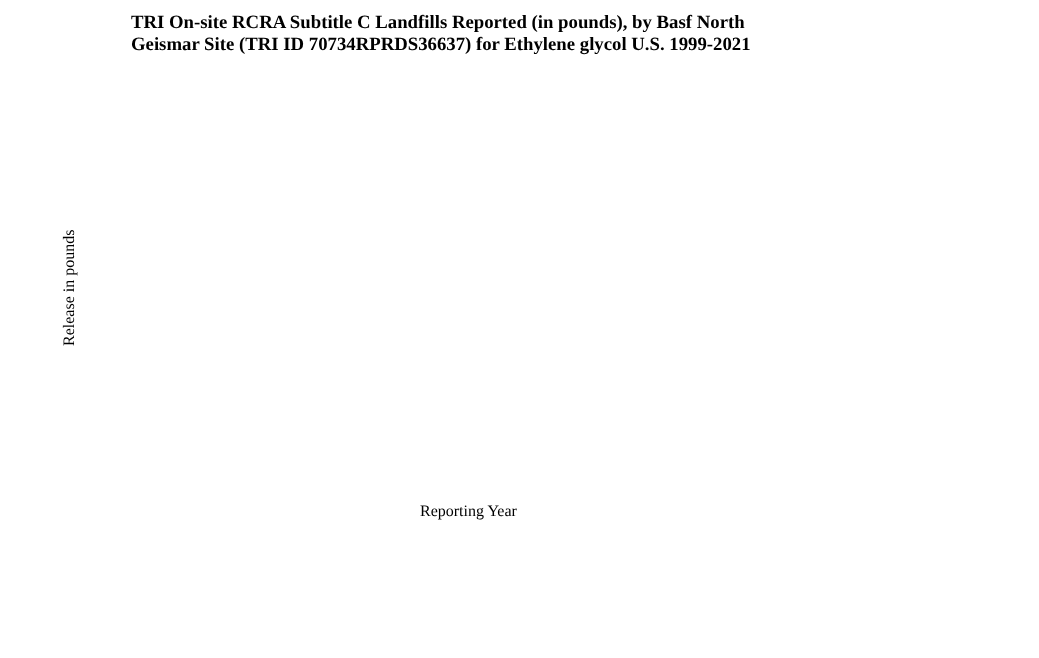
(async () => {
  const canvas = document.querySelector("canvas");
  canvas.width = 1039;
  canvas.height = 658;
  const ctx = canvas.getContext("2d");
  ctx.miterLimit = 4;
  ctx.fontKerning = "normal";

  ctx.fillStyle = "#ffffff";
  ctx.fillRect(0, 0, 1039, 658);
  ctx.font = "bold 18.75px Liberation Serif";
  ctx.fillStyle = "#000000";
  ctx.fillText("TRI On-site RCRA Subtitle C Landfills Reported (in pounds), by Basf North", 131, 28);
  ctx.fillText("Geismar Site (TRI ID 70734RPRDS36637) for Ethylene glycol U.S. 1999-2021", 131, 50);
  ctx.font = "16px Liberation Serif";
  ctx.save();
  ctx.translate(74, 346);
  ctx.rotate(-90 * Math.PI / 180);
  ctx.fillText("Release in pounds", 0, 0);
  ctx.restore();
  ctx.fillText("Reporting Year", 420, 516);
})();
